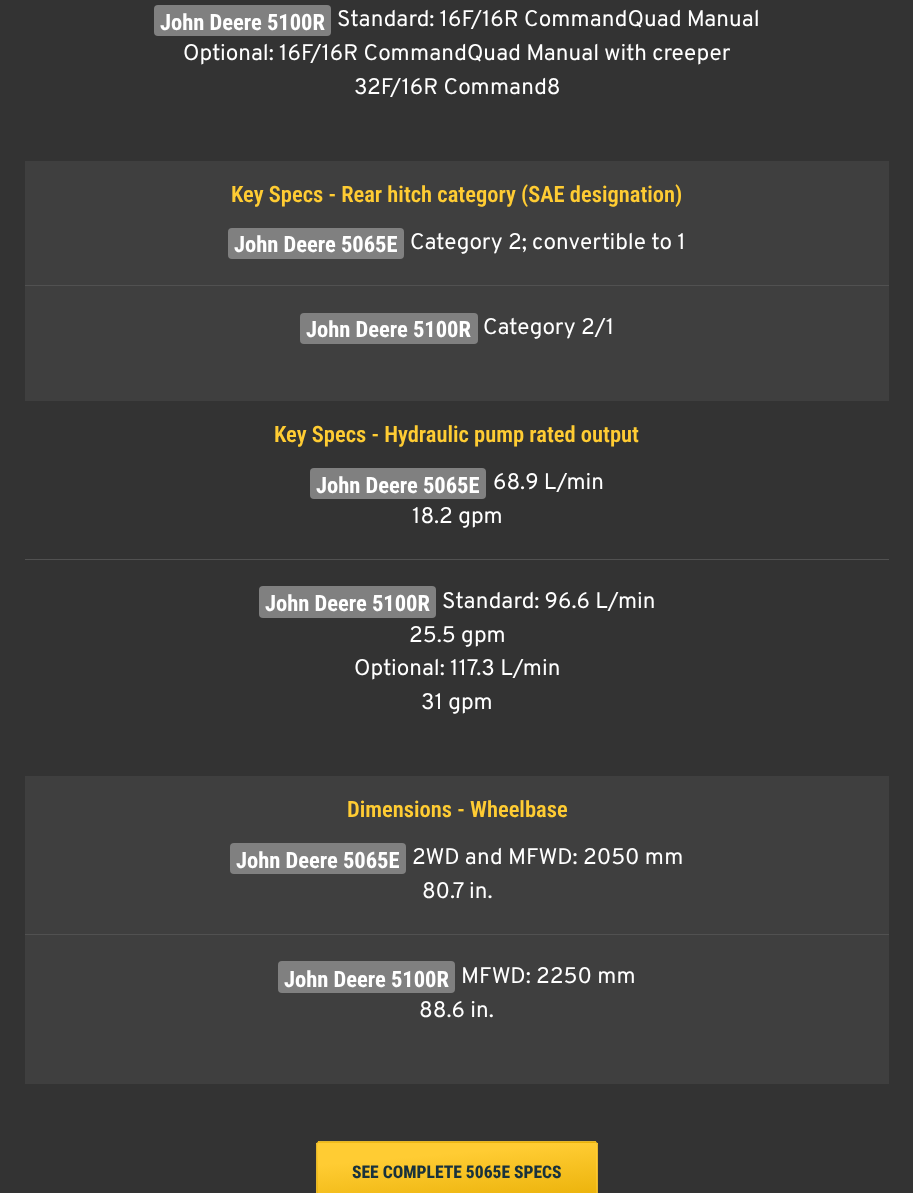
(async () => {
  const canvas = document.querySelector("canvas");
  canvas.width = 913;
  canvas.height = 1193;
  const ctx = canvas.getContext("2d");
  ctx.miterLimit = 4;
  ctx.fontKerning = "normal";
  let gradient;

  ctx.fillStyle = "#333333";
  ctx.fillRect(0, 0, 913, 1193);
  ctx.fillStyle = "#808080";
  ctx.beginPath();
  ctx.roundRect(154, 5, 177, 31, 4);
  ctx.fill();
  ctx.fillStyle = "#3f3f3f";
  ctx.fillRect(25, 161, 864, 240);
  ctx.fillStyle = "#515151";
  ctx.fillRect(25, 285, 864, 1);
  ctx.fillStyle = "#808080";
  ctx.beginPath();
  ctx.roundRect(228, 228, 176, 31, 4);
  ctx.fill();
  ctx.beginPath();
  ctx.roundRect(300, 313, 178, 31, 4);
  ctx.fill();
  ctx.fillStyle = "#515151";
  ctx.fillRect(25, 559, 864, 1);
  ctx.fillStyle = "#808080";
  ctx.beginPath();
  ctx.roundRect(310, 468, 176, 31, 4);
  ctx.fill();
  ctx.beginPath();
  ctx.roundRect(259, 586, 177, 32, 4);
  ctx.fill();
  ctx.fillStyle = "#3f3f3f";
  ctx.fillRect(25, 776, 864, 308);
  ctx.fillStyle = "#515151";
  ctx.fillRect(25, 934, 864, 1);
  ctx.fillStyle = "#808080";
  ctx.beginPath();
  ctx.roundRect(230, 843, 176, 31, 4);
  ctx.fill();
  ctx.beginPath();
  ctx.roundRect(278, 961, 177, 32, 4);
  ctx.fill();
  gradient = ctx.createLinearGradient(453, 1073, 461, 1165);
  gradient.addColorStop(0.24, "#ffcc33");
  gradient.addColorStop(1, "#e6ac00");
  ctx.fillStyle = gradient;
  ctx.fillRect(318, 1141, 278, 2);
  gradient = ctx.createLinearGradient(175, 1131, 183, 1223);
  gradient.addColorStop(0.24, "#ffcc33");
  gradient.addColorStop(1, "#e6ac00");
  ctx.fillStyle = gradient;
  ctx.fillRect(316, 1143, 2, 50);
  gradient = ctx.createLinearGradient(453, 1131, 461, 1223);
  gradient.addColorStop(0.24, "#ffcc33");
  gradient.addColorStop(1, "#e6ac00");
  ctx.fillStyle = gradient;
  ctx.fillRect(318, 1143, 278, 50);
  gradient = ctx.createLinearGradient(732, 1131, 740, 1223);
  gradient.addColorStop(0.24, "#ffcc33");
  gradient.addColorStop(1, "#e6ac00");
  ctx.fillStyle = gradient;
  ctx.fillRect(596, 1143, 2, 50);
  ctx.beginPath();
  ctx.roundRect(316.5, 1141.5, 281, 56, 3.5);
  ctx.strokeStyle = "#e5b72d";
  ctx.stroke();
  ctx.font = "bold 22.5px Roboto Condensed";
  ctx.fillStyle = "#ffffff";
  ctx.fillText("John Deere 5100R", 160, 30);
  ctx.font = "22.5px Overpass";
  for (const [text, x, y] of [
    ["Standard: 16F/16R CommandQuad Manual", 337, 26],
    ["Optional: 16F/16R CommandQuad Manual with creeper", 183, 60],
    ["32F/16R Command8", 354, 94],
  ]) {
    ctx.fillText(text, x, y);
  }
  ctx.font = "600 22.5px Roboto Condensed";
  ctx.fillStyle = "#ffcc33";
  ctx.fillText("Key Specs - Rear hitch category (SAE designation)", 231, 202);
  ctx.font = "bold 22.5px Roboto Condensed";
  ctx.fillStyle = "#ffffff";
  ctx.fillText("John Deere 5065E", 234, 252);
  ctx.font = "22.5px Overpass";
  ctx.fillText("Category 2; convertible to 1", 410, 249);
  ctx.font = "bold 22.5px Roboto Condensed";
  ctx.fillText("John Deere 5100R", 306, 337);
  ctx.font = "22.5px Overpass";
  ctx.fillText("Category 2/1", 483, 334);
  ctx.font = "600 22.5px Roboto Condensed";
  ctx.fillStyle = "#ffcc33";
  ctx.fillText("Key Specs - Hydraulic pump rated output", 274, 442);
  ctx.font = "bold 22.5px Roboto Condensed";
  ctx.fillStyle = "#ffffff";
  ctx.fillText("John Deere 5065E", 316, 493);
  ctx.font = "22.5px Overpass";
  ctx.fillText("68.9 L/min", 493, 489);
  ctx.fillText("18.2 gpm", 412, 523);
  ctx.font = "bold 22.5px Roboto Condensed";
  ctx.fillText("John Deere 5100R", 265, 611);
  ctx.font = "22.5px Overpass";
  for (const [text, x, y] of [
    ["Standard: 96.6 L/min", 442, 608],
    ["25.5 gpm", 409, 642],
    ["Optional: 117.3 L/min", 354, 675],
    ["31 gpm", 421, 709],
  ]) {
    ctx.fillText(text, x, y);
  }
  ctx.font = "600 22.5px Roboto Condensed";
  ctx.fillStyle = "#ffcc33";
  ctx.fillText("Dimensions - Wheelbase", 347, 817);
  ctx.font = "bold 22.5px Roboto Condensed";
  ctx.fillStyle = "#ffffff";
  ctx.fillText("John Deere 5065E", 236, 868);
  ctx.font = "22.5px Overpass";
  ctx.fillText("2WD and MFWD: 2050 mm", 412, 864);
  ctx.fillText("80.7 in.", 422, 898);
  ctx.font = "bold 22.5px Roboto Condensed";
  ctx.fillText("John Deere 5100R", 284, 987);
  ctx.font = "22.5px Overpass";
  ctx.fillText("MFWD: 2250 mm", 461, 983);
  ctx.fillText("88.6 in.", 419, 1017);
  ctx.font = "800 17.5px Roboto Condensed";
  ctx.fillStyle = "#19323c";
  ctx.fillText("SEE COMPLETE 5065E SPECS", 352, 1178);
})();
